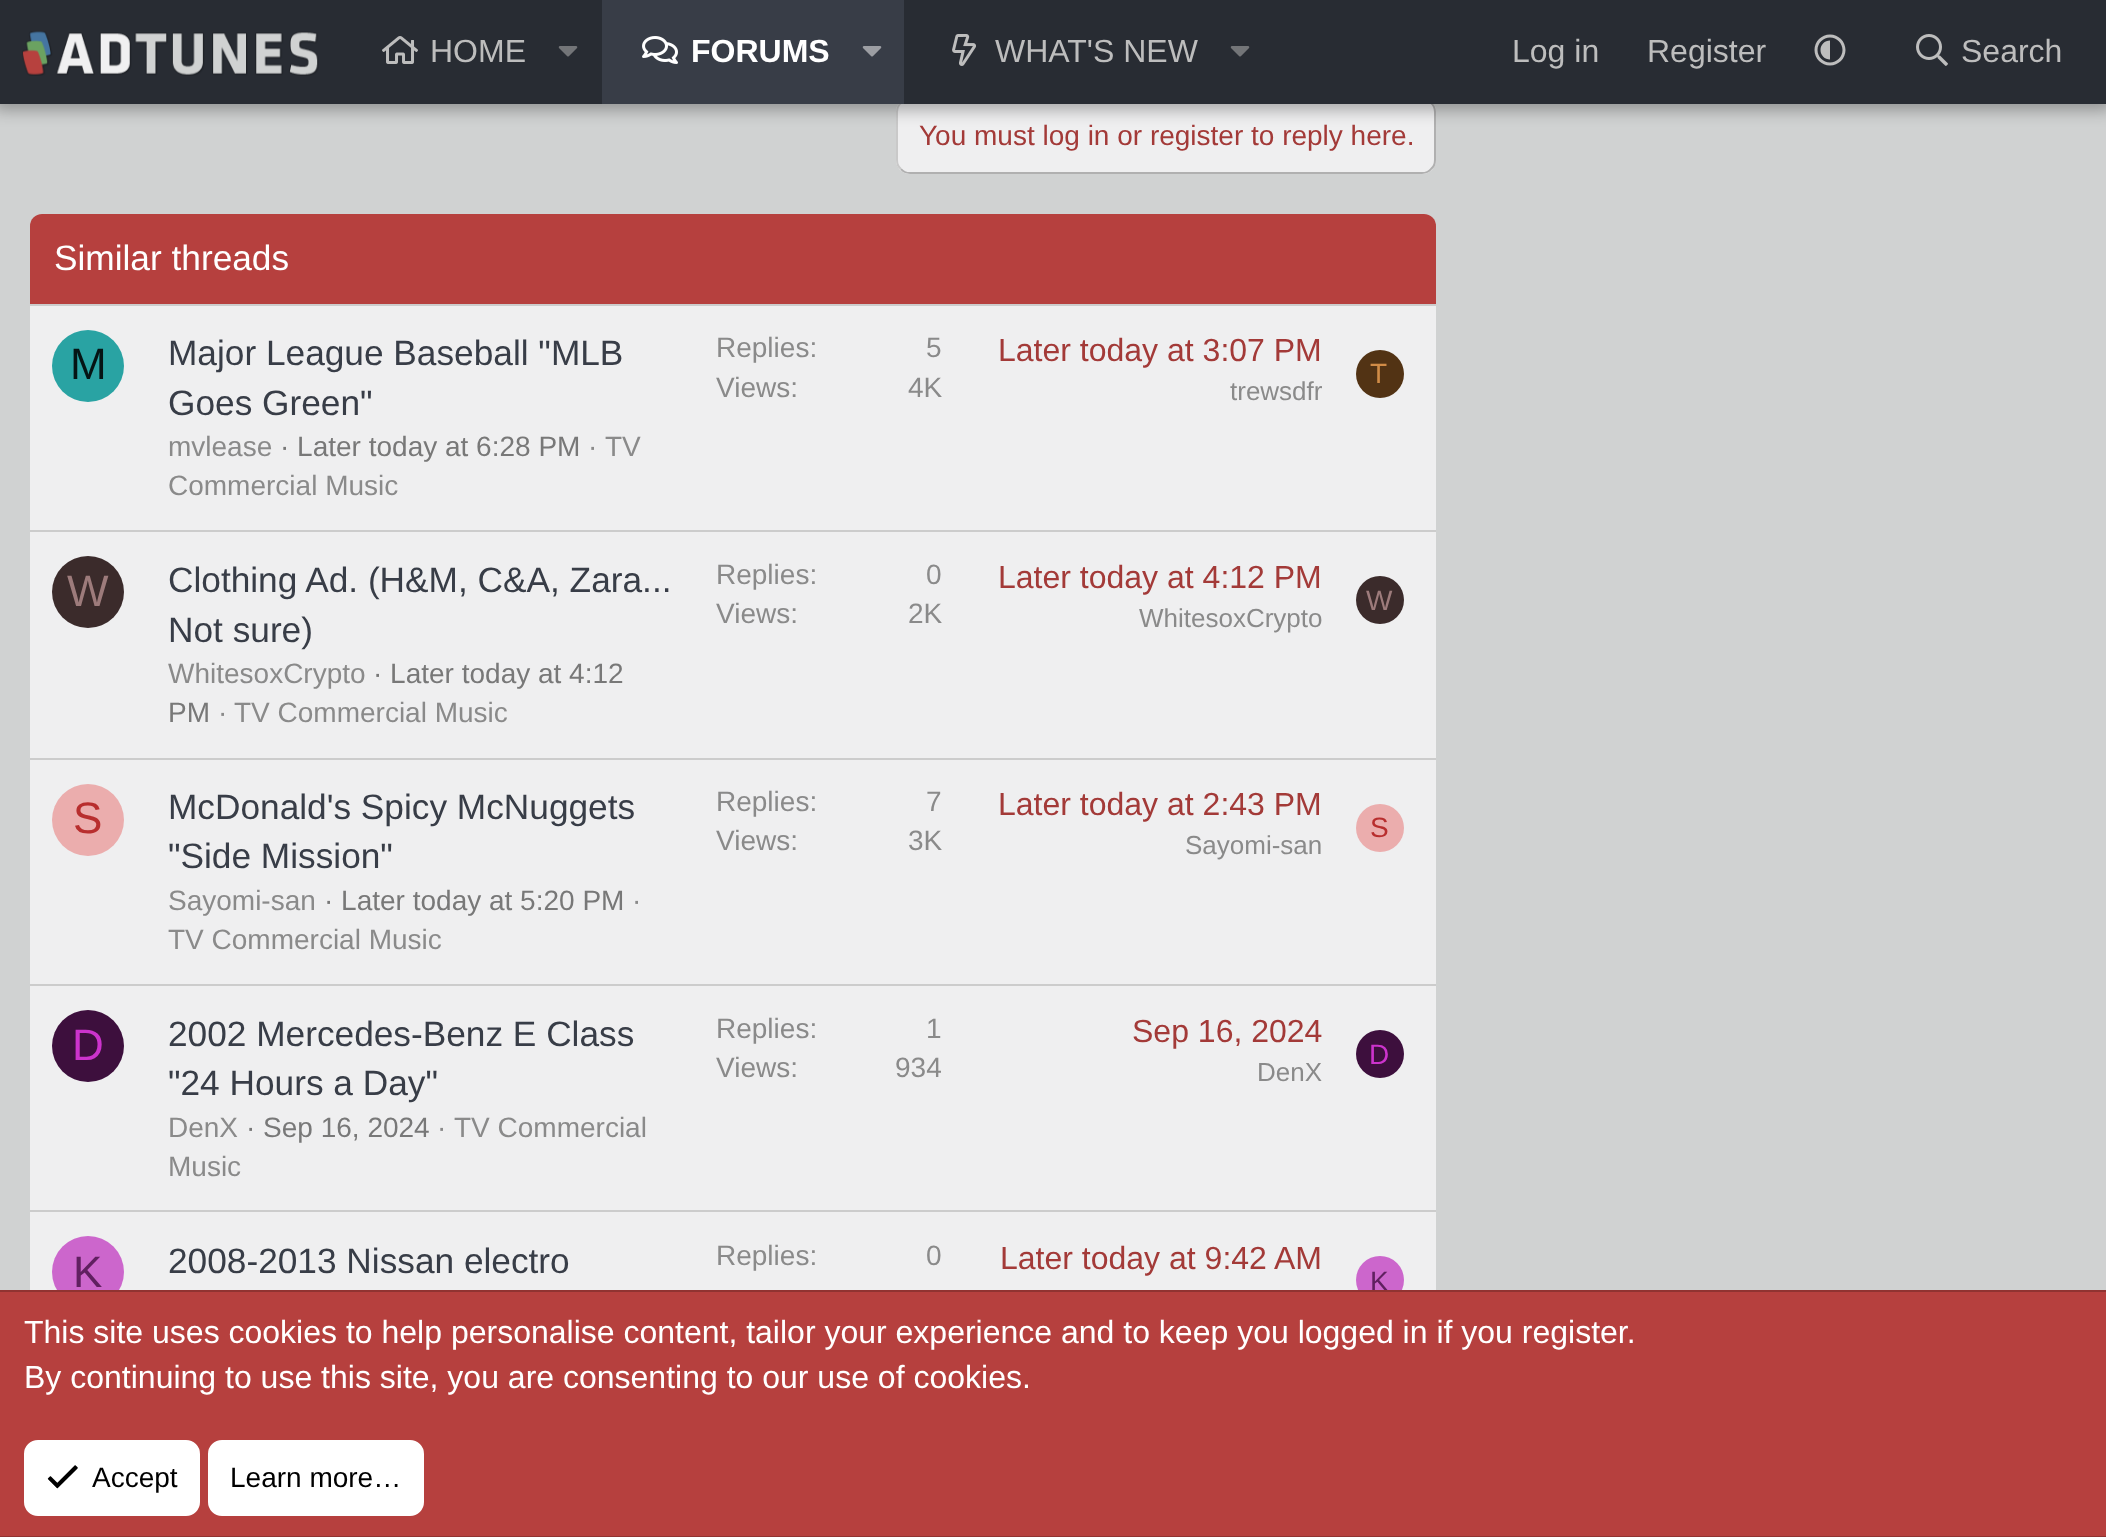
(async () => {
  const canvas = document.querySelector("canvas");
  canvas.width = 2106;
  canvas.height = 1537;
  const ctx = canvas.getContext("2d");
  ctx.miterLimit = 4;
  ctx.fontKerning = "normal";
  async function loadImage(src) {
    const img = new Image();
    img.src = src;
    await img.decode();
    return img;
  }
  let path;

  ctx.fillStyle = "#d0d2d2";
  ctx.fillRect(0, 0, 2106, 1537);
  ctx.fillStyle = "#efeff0";
  ctx.beginPath();
  ctx.roundRect(896, 98, 540, 76, 14);
  ctx.fill();
  path = new Path2D("M1431 103C1433.5 105 1435 108.5 1435 112V160C1435 163.5 1433.5 167 1431 169C1429 171.5 1425.5 173 1422 173H910C906.5 173 903 171.5 901 169");
  ctx.strokeStyle = "#b0b0b0";
  ctx.lineWidth = 2;
  ctx.stroke(path);
  path = new Path2D("M901 169C898.5 167 897 163.5 897 160V112C897 108.5 898.5 105 901 103C903 100.5 906.5 99 910 99H1422C1425.5 99 1429 100.5 1431 103");
  ctx.strokeStyle = "#c9c9c9";
  ctx.stroke(path);
  ctx.fillStyle = "rgba(0, 0, 0, 0.3)";
  ctx.filter = "blur(8px)";
  ctx.beginPath();
  ctx.rect(-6, -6, 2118, 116);
  ctx.fill();
  ctx.filter = "none";
  ctx.fillStyle = "#282c33";
  ctx.fillRect(0, 0, 2106, 104);
  ctx.drawImage(await loadImage("img/1.png"), 22, 31, 297, 45);
  ctx.drawImage(await loadImage("img/2.png"), 382, 36, 36, 28);
  ctx.drawImage(await loadImage("img/3.png"), 558, 46, 20, 11);
  ctx.fillStyle = "#383d47";
  ctx.fillRect(602, 0, 302, 104);
  ctx.drawImage(await loadImage("img/4.png"), 642, 36, 36, 28);
  ctx.drawImage(await loadImage("img/5.png"), 862, 46, 20, 11);
  ctx.drawImage(await loadImage("img/6.png"), 952, 34, 24, 32);
  ctx.drawImage(await loadImage("img/3.png"), 1230, 46, 20, 11);
  ctx.drawImage(await loadImage("img/7.png"), 1814, 34, 32, 32);
  ctx.drawImage(await loadImage("img/8.png"), 1916, 34, 32, 32);
  ctx.fillStyle = "#efeff0";
  ctx.beginPath();
  ctx.roundRect(30, 214, 1406, 1224, 14);
  ctx.fill();
  ctx.fillStyle = "#b6403e";
  ctx.beginPath();
  ctx.roundRect(30, 214, 1406, 92, [12, 12, 0, 0]);
  ctx.fill();
  ctx.fillStyle = "#cccccc";
  ctx.fillRect(30, 304, 1406, 2);
  ctx.fillStyle = "#29a3a3";
  ctx.beginPath();
  ctx.arc(88, 366, 36, 0, Math.PI * 2);
  ctx.fill();
  ctx.fillStyle = "#523314";
  ctx.beginPath();
  ctx.arc(1380, 374, 24, 0, Math.PI * 2);
  ctx.fill();
  ctx.fillStyle = "#cccccc";
  ctx.fillRect(30, 530, 1406, 2);
  ctx.fillStyle = "#3b2b2b";
  ctx.beginPath();
  ctx.arc(88, 592, 36, 0, Math.PI * 2);
  ctx.fill();
  ctx.beginPath();
  ctx.arc(1380, 600, 24, 0, Math.PI * 2);
  ctx.fill();
  ctx.fillStyle = "#cccccc";
  ctx.fillRect(30, 758, 1406, 2);
  ctx.fillStyle = "#ebadad";
  ctx.beginPath();
  ctx.arc(88, 820, 36, 0, Math.PI * 2);
  ctx.fill();
  ctx.beginPath();
  ctx.arc(1380, 828, 24, 0, Math.PI * 2);
  ctx.fill();
  ctx.fillStyle = "#cccccc";
  ctx.fillRect(30, 984, 1406, 2);
  ctx.fillStyle = "#3d0f3d";
  ctx.beginPath();
  ctx.arc(88, 1046, 36, 0, Math.PI * 2);
  ctx.fill();
  ctx.beginPath();
  ctx.arc(1380, 1054, 24, 0, Math.PI * 2);
  ctx.fill();
  ctx.fillStyle = "#cccccc";
  ctx.fillRect(30, 1210, 1406, 2);
  ctx.fillStyle = "#cc66cc";
  ctx.beginPath();
  ctx.arc(88, 1272, 36, 0, Math.PI * 2);
  ctx.fill();
  ctx.beginPath();
  ctx.arc(1380, 1280, 24, 0, Math.PI * 2);
  ctx.fill();
  ctx.fillStyle = "#b6403e";
  ctx.fillRect(0, 1292, 2106, 244);
  ctx.fillStyle = "#903331";
  ctx.fillRect(0, 1536, 2106, 1);
  ctx.fillStyle = "#ffffff";
  ctx.beginPath();
  ctx.roundRect(25, 1441, 174, 74, 13);
  ctx.fill();
  ctx.strokeStyle = "#ffffff";
  ctx.stroke();
  ctx.drawImage(await loadImage("img/9.png"), 47, 1465, 31, 24);
  ctx.beginPath();
  ctx.roundRect(209, 1441, 214, 74, 13);
  ctx.fill();
  ctx.stroke();
  ctx.font = "32px Liberation Sans";
  ctx.fillStyle = "#bdbdbd";
  ctx.fillText("HOME", 430, 62);
  ctx.font = "bold 32px Liberation Sans";
  ctx.fillStyle = "#ffffff";
  ctx.fillText("FORUMS", 691, 62);
  ctx.font = "32px Liberation Sans";
  ctx.fillStyle = "#bdbdbd";
  for (const [text, x, y] of [
    ["WHAT'S NEW", 995, 62],
    ["Log in", 1512, 62],
    ["Register", 1647, 62],
    ["Search", 1961, 62],
  ]) {
    ctx.fillText(text, x, y);
  }
  ctx.font = "28px Liberation Sans";
  ctx.fillStyle = "#a33a38";
  ctx.fillText("You must log in or register to reply here.", 919, 145);
  ctx.font = "35.25px Liberation Sans";
  ctx.fillStyle = "#ffffff";
  ctx.fillText("Similar threads", 54, 270);
  ctx.font = "44px Liberation Sans";
  ctx.fillStyle = "#051414";
  ctx.fillText("M", 70, 379);
  ctx.font = "35.25px Liberation Sans";
  ctx.fillStyle = "#383d47";
  ctx.fillText("Major League Baseball \"MLB", 168, 365);
  ctx.fillText("Goes Green\"", 168, 415);
  ctx.font = "28px Liberation Sans";
  ctx.fillStyle = "#8a8a8a";
  ctx.fillText("mvlease", 168, 456);
  ctx.fillStyle = "#787878";
  ctx.fillText("· Later today at 6:28 PM", 280, 456);
  ctx.fillStyle = "#8a8a8a";
  for (const [text, x, y] of [
    ["·", 588, 456],
    ["TV", 605, 456],
    ["Commercial Music", 168, 495],
    ["Replies:", 716, 357],
    ["5", 926, 357],
    ["Views:", 716, 397],
    ["4K", 908, 397],
  ]) {
    ctx.fillText(text, x, y);
  }
  ctx.font = "32px Liberation Sans";
  ctx.fillStyle = "#a33a38";
  ctx.fillText("Later today at 3:07 PM", 998, 361);
  ctx.font = "26px Liberation Sans";
  ctx.fillStyle = "#8a8a8a";
  ctx.fillText("trewsdfr", 1230, 400);
  ctx.font = "28px Liberation Sans";
  ctx.fillStyle = "#d18c47";
  ctx.fillText("T", 1370, 383);
  ctx.font = "44px Liberation Sans";
  ctx.fillStyle = "#9d7b7b";
  ctx.fillText("W", 67, 606);
  ctx.font = "35.25px Liberation Sans";
  ctx.fillStyle = "#383d47";
  ctx.fillText("Clothing Ad. (H&M, C&A, Zara...", 168, 592);
  ctx.fillText("Not sure)", 168, 642);
  ctx.font = "28px Liberation Sans";
  ctx.fillStyle = "#8a8a8a";
  ctx.fillText("WhitesoxCrypto", 168, 683);
  ctx.fillStyle = "#787878";
  ctx.fillText("· Later today at 4:12", 373, 683);
  ctx.fillText("PM", 168, 722);
  ctx.fillStyle = "#8a8a8a";
  for (const [text, x, y] of [
    ["·", 218, 722],
    ["TV Commercial Music", 234, 722],
    ["Replies:", 716, 584],
    ["0", 926, 584],
    ["Views:", 716, 623],
    ["2K", 908, 623],
  ]) {
    ctx.fillText(text, x, y);
  }
  ctx.font = "32px Liberation Sans";
  ctx.fillStyle = "#a33a38";
  ctx.fillText("Later today at 4:12 PM", 998, 588);
  ctx.font = "26px Liberation Sans";
  ctx.fillStyle = "#8a8a8a";
  ctx.fillText("WhitesoxCrypto", 1139, 627);
  ctx.font = "28px Liberation Sans";
  ctx.fillStyle = "#9d7b7b";
  ctx.fillText("W", 1366, 610);
  ctx.font = "44px Liberation Sans";
  ctx.fillStyle = "#b82e2e";
  ctx.fillText("S", 73, 833);
  ctx.font = "35.25px Liberation Sans";
  ctx.fillStyle = "#383d47";
  ctx.fillText("McDonald's Spicy McNuggets", 168, 819);
  ctx.fillText("\"Side Mission\"", 168, 868);
  ctx.font = "28px Liberation Sans";
  ctx.fillStyle = "#8a8a8a";
  ctx.fillText("Sayomi-san", 168, 910);
  ctx.fillStyle = "#787878";
  ctx.fillText("· Later today at 5:20 PM", 324, 910);
  ctx.fillStyle = "#8a8a8a";
  for (const [text, x, y] of [
    ["·", 632, 910],
    ["TV Commercial Music", 168, 949],
    ["Replies:", 716, 811],
    ["7", 926, 811],
    ["Views:", 716, 850],
    ["3K", 908, 850],
  ]) {
    ctx.fillText(text, x, y);
  }
  ctx.font = "32px Liberation Sans";
  ctx.fillStyle = "#a33a38";
  ctx.fillText("Later today at 2:43 PM", 998, 815);
  ctx.font = "26px Liberation Sans";
  ctx.fillStyle = "#8a8a8a";
  ctx.fillText("Sayomi-san", 1185, 854);
  ctx.font = "28px Liberation Sans";
  ctx.fillStyle = "#b82e2e";
  ctx.fillText("S", 1370, 837);
  ctx.font = "44px Liberation Sans";
  ctx.fillStyle = "#cc33cc";
  ctx.fillText("D", 72, 1060);
  ctx.font = "35.25px Liberation Sans";
  ctx.fillStyle = "#383d47";
  ctx.fillText("2002 Mercedes-Benz E Class", 168, 1046);
  ctx.fillText("\"24 Hours a Day\"", 168, 1095);
  ctx.font = "28px Liberation Sans";
  ctx.fillStyle = "#8a8a8a";
  ctx.fillText("DenX", 168, 1137);
  ctx.fillStyle = "#787878";
  ctx.fillText("· Sep 16, 2024", 246, 1137);
  ctx.fillStyle = "#8a8a8a";
  for (const [text, x, y] of [
    ["·", 437, 1137],
    ["TV Commercial", 454, 1137],
    ["Music", 168, 1176],
    ["Replies:", 716, 1038],
    ["1", 926, 1038],
    ["Views:", 716, 1077],
    ["934", 895, 1077],
  ]) {
    ctx.fillText(text, x, y);
  }
  ctx.font = "32px Liberation Sans";
  ctx.fillStyle = "#a33a38";
  ctx.fillText("Sep 16, 2024", 1132, 1042);
  ctx.font = "26px Liberation Sans";
  ctx.fillStyle = "#8a8a8a";
  ctx.fillText("DenX", 1257, 1081);
  ctx.font = "28px Liberation Sans";
  ctx.fillStyle = "#cc33cc";
  ctx.fillText("D", 1369, 1064);
  ctx.font = "44px Liberation Sans";
  ctx.fillStyle = "#602060";
  ctx.fillText("K", 73, 1287);
  ctx.font = "35.25px Liberation Sans";
  ctx.fillStyle = "#383d47";
  ctx.fillText("2008-2013 Nissan electro", 168, 1273);
  ctx.font = "28px Liberation Sans";
  ctx.fillStyle = "#8a8a8a";
  ctx.fillText("Replies:", 716, 1265);
  ctx.fillText("0", 926, 1265);
  ctx.font = "32px Liberation Sans";
  ctx.fillStyle = "#a33a38";
  ctx.fillText("Later today at 9:42 AM", 1000, 1269);
  ctx.font = "28px Liberation Sans";
  ctx.fillStyle = "#602060";
  ctx.fillText("K", 1370, 1291);
  ctx.fillStyle = "#903331";
  ctx.fillRect(0, 1290, 2106, 2);
  ctx.font = "32px Liberation Sans";
  ctx.fillStyle = "#ffffff";
  ctx.fillText("This site uses cookies to help personalise content, tailor your experience and to keep you logged in if you register.", 24, 1343);
  ctx.fillText("By continuing to use this site, you are consenting to our use of cookies.", 24, 1388);
  ctx.font = "28px Liberation Sans";
  ctx.fillStyle = "#000000";
  ctx.fillText("Accept", 92, 1487);
  ctx.fillText("Learn more…", 230, 1487);
})();
